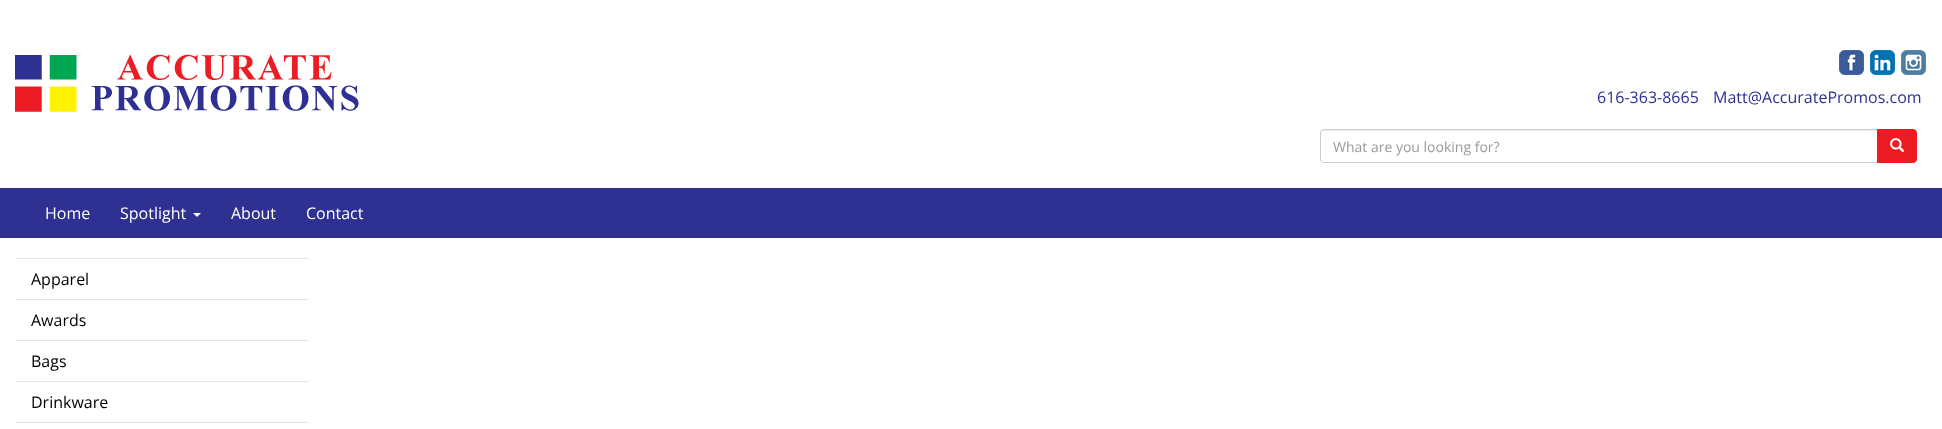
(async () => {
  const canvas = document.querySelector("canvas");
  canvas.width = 1942;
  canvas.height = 429;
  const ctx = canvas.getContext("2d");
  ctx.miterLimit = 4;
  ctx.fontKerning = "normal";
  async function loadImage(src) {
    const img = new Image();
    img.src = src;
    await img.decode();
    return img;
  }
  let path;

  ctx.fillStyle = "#ffffff";
  ctx.fillRect(0, 0, 1942, 429);
  ctx.drawImage(await loadImage("img/1.png"), 15, 54, 344, 58);
  ctx.drawImage(await loadImage("img/2.png"), 1839, 50, 25, 25);
  ctx.drawImage(await loadImage("img/3.png"), 1870, 50, 25, 25);
  ctx.drawImage(await loadImage("img/4.png"), 1901, 50, 25, 25);
  ctx.fillStyle = "#ececec";
  path = new Path2D("M1324 131H1877V130H1324C1322 130 1321 131 1321 133V134C1321 132 1322 131 1324 131Z");
  ctx.fill(path);
  ctx.beginPath();
  ctx.roundRect(1320.5, 129.5, 557, 33, [3.5, 0, 0, 3.5]);
  ctx.strokeStyle = "#cccccc";
  ctx.stroke();
  ctx.fillStyle = "#ed1c24";
  ctx.beginPath();
  ctx.roundRect(1877.5, 129.5, 39, 33, [0, 3.5, 3.5, 0]);
  ctx.fill();
  ctx.strokeStyle = "#ed1c24";
  ctx.stroke();
  ctx.drawImage(await loadImage("img/5.png"), 1890, 138, 15, 14);
  ctx.fillStyle = "#2e3192";
  ctx.fillRect(0, 188, 1942, 50);
  ctx.fillStyle = "#ffffff";
  path = new Path2D("M193 213H201L197 217Z");
  ctx.fill(path);
  for (const [x, y, w, h, color] of [
    [15, 258, 294, 1, "#e5e5e5"],
    [15, 299, 294, 1, "#e5e5e5"],
    [15, 340, 294, 1, "#e5e5e5"],
    [15, 381, 294, 1, "#e5e5e5"],
    [15, 422, 294, 1, "#e5e5e5"],
  ]) {
    ctx.fillStyle = color;
    ctx.fillRect(x, y, w, h);
  }
  ctx.font = "16px Open Sans";
  ctx.fillStyle = "#2e3192";
  ctx.fillText("616-363-8665", 1597, 103);
  ctx.fillText("Matt@AccuratePromos.com", 1713, 103);
  ctx.font = "14px Open Sans";
  ctx.fillStyle = "#999999";
  ctx.fillText("What are you looking for?", 1333, 152);
  ctx.font = "16px Open Sans";
  ctx.fillStyle = "#ffffff";
  for (const [text, x, y] of [
    ["Home", 45, 219],
    ["Spotlight", 120, 219],
    ["About", 231, 219],
    ["Contact", 306, 219],
  ]) {
    ctx.fillText(text, x, y);
  }
  ctx.fillStyle = "#000000";
  for (const [text, x, y] of [
    ["Apparel", 31, 285],
    ["Awards", 31, 326],
    ["Bags", 31, 367],
    ["Drinkware", 31, 408],
  ]) {
    ctx.fillText(text, x, y);
  }
})();
